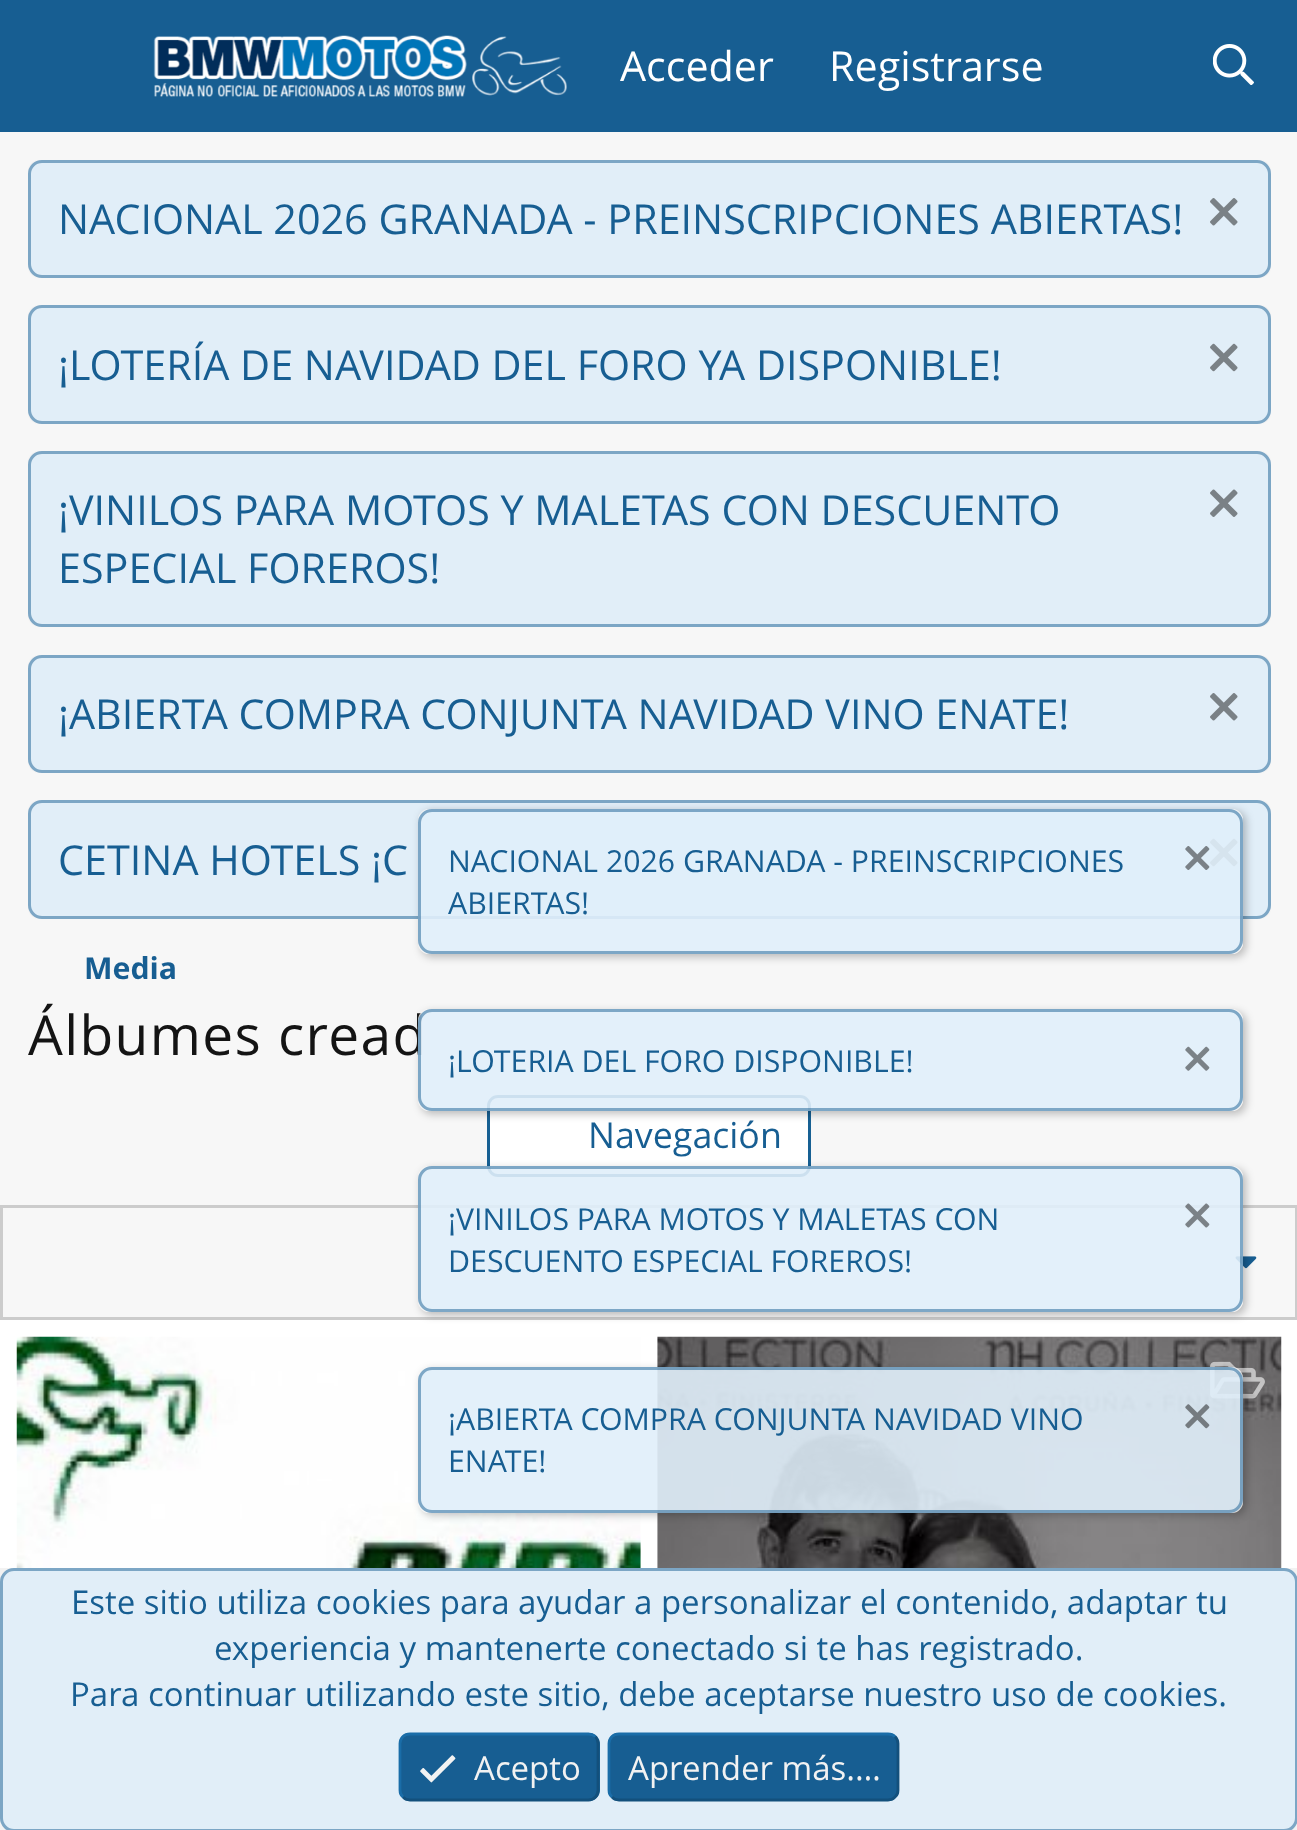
(async () => {
  const canvas = document.querySelector("canvas");
  canvas.width = 1297;
  canvas.height = 1830;
  const ctx = canvas.getContext("2d");
  ctx.miterLimit = 4;
  ctx.fontKerning = "normal";
  async function loadImage(src) {
    const img = new Image();
    img.src = src;
    await img.decode();
    return img;
  }
  let path;

  ctx.fillStyle = "#f7f7f7";
  ctx.fillRect(0, 0, 1297, 1830);
  ctx.fillStyle = "#175e92";
  ctx.fillRect(0, 0, 1297, 132);
  ctx.drawImage(await loadImage("img/1.png"), 153, 35, 414, 62);
  ctx.drawImage(await loadImage("img/2.png"), 1213, 44, 41, 41);
  ctx.fillStyle = "#f2f2f2";
  ctx.beginPath();
  ctx.roundRect(28, 160, 1243, 118, 11);
  ctx.fill();
  ctx.fillStyle = "#e1eef8";
  ctx.beginPath();
  ctx.roundRect(28, 160, 1243, 118, 14);
  ctx.fill();
  ctx.beginPath();
  ctx.roundRect(29.5, 161.5, 1240, 115, 12.5);
  ctx.strokeStyle = "rgba(23, 94, 146, 0.5)";
  ctx.lineWidth = 3;
  ctx.stroke();
  ctx.drawImage(await loadImage("img/3.png"), 1210, 198, 28, 28);
  ctx.fillStyle = "#f2f2f2";
  ctx.beginPath();
  ctx.roundRect(28, 305, 1243, 119, 11);
  ctx.fill();
  ctx.fillStyle = "#e1eef8";
  ctx.beginPath();
  ctx.roundRect(28, 305, 1243, 119, 14);
  ctx.fill();
  ctx.beginPath();
  ctx.roundRect(29.5, 306.5, 1240, 116, 12.5);
  ctx.stroke();
  ctx.drawImage(await loadImage("img/4.png"), 1210, 343, 28, 29);
  ctx.fillStyle = "#f2f2f2";
  ctx.beginPath();
  ctx.roundRect(28, 451, 1243, 176, 11);
  ctx.fill();
  ctx.fillStyle = "#e1eef8";
  ctx.beginPath();
  ctx.roundRect(28, 451, 1243, 176, 14);
  ctx.fill();
  ctx.beginPath();
  ctx.roundRect(29.5, 452.5, 1240, 173, 12.5);
  ctx.stroke();
  ctx.drawImage(await loadImage("img/5.png"), 1210, 489, 28, 28);
  ctx.fillStyle = "#f2f2f2";
  ctx.beginPath();
  ctx.roundRect(28, 655, 1243, 118, 11);
  ctx.fill();
  ctx.fillStyle = "#e1eef8";
  ctx.beginPath();
  ctx.roundRect(28, 655, 1243, 118, 14);
  ctx.fill();
  ctx.beginPath();
  ctx.roundRect(29.5, 656.5, 1240, 115, 12.5);
  ctx.stroke();
  ctx.drawImage(await loadImage("img/3.png"), 1210, 693, 28, 28);
  ctx.fillStyle = "#f2f2f2";
  ctx.beginPath();
  ctx.roundRect(28, 800, 1243, 119, 11);
  ctx.fill();
  ctx.fillStyle = "#e1eef8";
  ctx.beginPath();
  ctx.roundRect(28, 800, 1243, 119, 14);
  ctx.fill();
  ctx.beginPath();
  ctx.roundRect(29.5, 801.5, 1240, 116, 12.5);
  ctx.stroke();
  ctx.drawImage(await loadImage("img/4.png"), 1210, 838, 28, 29);
  ctx.fillStyle = "#ffffff";
  ctx.beginPath();
  ctx.roundRect(488.5, 1096.5, 321, 79, 9.5);
  ctx.fill();
  ctx.strokeStyle = "#176093";
  ctx.stroke();
  ctx.fillRect(0, 1320, 1297, 248);
  ctx.strokeStyle = "#cccccc";
  ctx.strokeRect(1.5, 1206.5, 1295, 112);
  ctx.drawImage(await loadImage("img/6.png"), 1235, 1256, 22, 13);
  ctx.drawImage(await loadImage("img/7.png"), 16, 1336, 625, 232);
  ctx.drawImage(await loadImage("img/8.png"), 657, 1336, 625, 232);
  ctx.drawImage(await loadImage("img/9.png"), 1210, 1361, 55, 38);
  ctx.save();
  path = new Path2D("M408 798H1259V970H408ZM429 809H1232C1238 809 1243 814 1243 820V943C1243 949 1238 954 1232 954H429C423 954 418 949 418 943V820C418 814 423 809 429 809Z");
  ctx.clip(path, "evenodd");
  ctx.fillStyle = "rgba(0, 0, 0, 0.25)";
  ctx.filter = "blur(4px)";
  ctx.beginPath();
  ctx.roundRect(421, 811, 825, 146, 11);
  ctx.fill();
  ctx.filter = "none";
  ctx.restore();
  ctx.fillStyle = "rgba(242, 242, 242, 0.8)";
  ctx.beginPath();
  ctx.roundRect(418, 809, 825, 145, 11);
  ctx.fill();
  ctx.fillStyle = "rgba(209, 235, 255, 0.5)";
  ctx.beginPath();
  ctx.roundRect(418, 809, 825, 145, 14);
  ctx.fill();
  ctx.beginPath();
  ctx.roundRect(419.5, 810.5, 822, 142, 12.5);
  ctx.strokeStyle = "rgba(23, 94, 146, 0.5)";
  ctx.stroke();
  ctx.drawImage(await loadImage("img/10.png"), 1185, 846, 25, 24);
  ctx.save();
  path = new Path2D("M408 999H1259V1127H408ZM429 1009H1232C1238 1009 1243 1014 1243 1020V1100C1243 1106 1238 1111 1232 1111H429C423 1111 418 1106 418 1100V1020C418 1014 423 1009 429 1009Z");
  ctx.clip(path, "evenodd");
  ctx.fillStyle = "rgba(0, 0, 0, 0.25)";
  ctx.filter = "blur(4px)";
  ctx.beginPath();
  ctx.roundRect(421, 1012, 825, 102, 11);
  ctx.fill();
  ctx.filter = "none";
  ctx.restore();
  ctx.save();
  path = new Path2D("M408 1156H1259V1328H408ZM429 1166H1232C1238 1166 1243 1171 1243 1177V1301C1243 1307 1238 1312 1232 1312H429C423 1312 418 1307 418 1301V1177C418 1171 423 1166 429 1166Z");
  ctx.clip(path, "evenodd");
  ctx.fillStyle = "rgba(0, 0, 0, 0.25)";
  ctx.filter = "blur(4px)";
  ctx.beginPath();
  ctx.roundRect(421, 1169, 825, 146, 11);
  ctx.fill();
  ctx.filter = "none";
  ctx.restore();
  ctx.fillStyle = "rgba(242, 242, 242, 0.8)";
  ctx.beginPath();
  ctx.roundRect(418, 1166, 825, 146, 11);
  ctx.fill();
  ctx.fillStyle = "rgba(209, 235, 255, 0.5)";
  ctx.beginPath();
  ctx.roundRect(418, 1166, 825, 146, 14);
  ctx.fill();
  ctx.beginPath();
  ctx.roundRect(419.5, 1167.5, 822, 143, 12.5);
  ctx.stroke();
  ctx.drawImage(await loadImage("img/12.png"), 1185, 1203, 25, 25);
  ctx.save();
  path = new Path2D("M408 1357H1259V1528H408ZM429 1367H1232C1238 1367 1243 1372 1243 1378V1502C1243 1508 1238 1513 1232 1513H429C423 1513 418 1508 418 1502V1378C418 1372 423 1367 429 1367Z");
  ctx.clip(path, "evenodd");
  ctx.fillStyle = "rgba(0, 0, 0, 0.25)";
  ctx.filter = "blur(4px)";
  ctx.beginPath();
  ctx.roundRect(421, 1370, 825, 145, 11);
  ctx.fill();
  ctx.filter = "none";
  ctx.restore();
  ctx.fillStyle = "rgba(242, 242, 242, 0.8)";
  ctx.beginPath();
  ctx.roundRect(418, 1367, 825, 146, 11);
  ctx.fill();
  ctx.fillStyle = "rgba(209, 235, 255, 0.5)";
  ctx.beginPath();
  ctx.roundRect(418, 1367, 825, 146, 14);
  ctx.fill();
  ctx.beginPath();
  ctx.roundRect(419.5, 1368.5, 822, 143, 12.5);
  ctx.stroke();
  ctx.drawImage(await loadImage("img/13.png"), 1185, 1404, 25, 25);
  ctx.fillStyle = "#f2f2f2";
  ctx.fillRect(0, 1568, 1297, 262);
  ctx.fillStyle = "#e1eef8";
  ctx.beginPath();
  ctx.roundRect(0, 1568, 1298, 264, 14);
  ctx.fill();
  ctx.beginPath();
  ctx.roundRect(1.5, 1569.5, 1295, 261, 12.5);
  ctx.stroke();
  ctx.fillStyle = "#175e92";
  ctx.beginPath();
  ctx.roundRect(399, 1733, 201, 68, 11);
  ctx.fill();
  path = new Path2D("M595.5 1736.5C597 1738.5 598 1741 598 1743.5V1790C598 1793 597 1795.5 595.5 1797C593.5 1799 591 1800 588.5 1800H410C407 1800 404.5 1799 403 1797");
  ctx.strokeStyle = "#13507c";
  ctx.lineWidth = 2.8;
  ctx.stroke(path);
  path = new Path2D("M403 1797C401 1795.5 400 1793 400 1790V1743.5C400 1741 401 1738.5 403 1736.5C404.5 1735 407 1734 410 1734H588.5C591 1734 593.5 1735 595.5 1736.5");
  ctx.strokeStyle = "#1a6da8";
  ctx.stroke(path);
  ctx.drawImage(await loadImage("img/14.png"), 420, 1755, 36, 28);
  ctx.beginPath();
  ctx.roundRect(608, 1733, 291, 68, 11);
  ctx.fill();
  path = new Path2D("M895 1736.5C897 1738.5 898 1741 898 1743.5V1790C898 1793 897 1795.5 895 1797C893.5 1799 891 1800 888 1800H619C616 1800 613.5 1799 612 1797");
  ctx.strokeStyle = "#13507c";
  ctx.stroke(path);
  path = new Path2D("M612 1797C610 1795.5 609 1793 609 1790V1743.5C609 1741 610 1738.5 612 1736.5C613.5 1735 616 1734 619 1734H888C891 1734 893.5 1735 895 1736.5");
  ctx.strokeStyle = "#1a6da8";
  ctx.stroke(path);
  ctx.font = "41.25px Open Sans";
  ctx.fillStyle = "#ffffff";
  ctx.fillText("Acceder", 620, 81);
  ctx.fillText("Registrarse", 829, 81);
  ctx.fillStyle = "#175e92";
  for (const [text, x, y] of [
    ["NACIONAL 2026 GRANADA - PREINSCRIPCIONES ABIERTAS!", 58, 234],
    ["¡LOTERÍA DE NAVIDAD DEL FORO YA DISPONIBLE!", 58, 380],
    ["¡VINILOS PARA MOTOS Y MALETAS CON DESCUENTO", 58, 525],
    ["ESPECIAL FOREROS!", 58, 583],
    ["¡ABIERTA COMPRA CONJUNTA NAVIDAD VINO ENATE!", 58, 729],
    ["CETINA HOTELS ¡C", 58, 875],
  ]) {
    ctx.fillText(text, x, y);
  }
  ctx.font = "bold 30.25px Open Sans";
  ctx.fillText("Media", 84, 979);
  ctx.letterSpacing = "1.4px";
  ctx.font = "55px Open Sans";
  ctx.fillStyle = "#141414";
  ctx.fillText("Álbumes cread", 28, 1055);
  ctx.letterSpacing = "0px";
  ctx.font = "35.75px Open Sans";
  ctx.fillStyle = "#175e92";
  ctx.fillText("Navegación", 588, 1148);
  ctx.font = "30.25px Open Sans";
  ctx.fillText("NACIONAL 2026 GRANADA - PREINSCRIPCIONES", 448, 872);
  ctx.fillText("ABIERTAS!", 448, 914);
  ctx.fillStyle = "rgba(242, 242, 242, 0.8)";
  ctx.beginPath();
  ctx.roundRect(418, 1009, 825, 102, 11);
  ctx.fill();
  ctx.fillStyle = "rgba(209, 235, 255, 0.5)";
  ctx.beginPath();
  ctx.roundRect(418, 1009, 825, 102, 14);
  ctx.fill();
  ctx.beginPath();
  ctx.roundRect(419.5, 1010.5, 822, 99, 12.5);
  ctx.strokeStyle = "rgba(23, 94, 146, 0.5)";
  ctx.lineWidth = 3;
  ctx.stroke();
  ctx.fillStyle = "#175e92";
  ctx.fillText("¡LOTERIA DEL FORO DISPONIBLE!", 448, 1072);
  ctx.drawImage(await loadImage("img/11.png"), 1185, 1046, 25, 25);
  for (const [text, x, y] of [
    ["¡VINILOS PARA MOTOS Y MALETAS CON", 448, 1230],
    ["DESCUENTO ESPECIAL FOREROS!", 448, 1272],
    ["¡ABIERTA COMPRA CONJUNTA NAVIDAD VINO", 448, 1430],
    ["ENATE!", 448, 1472],
  ]) {
    ctx.fillText(text, x, y);
  }
  ctx.font = "33px Open Sans";
  for (const [text, x, y] of [
    ["Este sitio utiliza cookies para ayudar a personalizar el contenido, adaptar tu", 71, 1614],
    ["experiencia y mantenerte conectado si te has registrado.", 214, 1660],
    ["Para continuar utilizando este sitio, debe aceptarse nuestro uso de cookies.", 70, 1706],
  ]) {
    ctx.fillText(text, x, y);
  }
  ctx.fillStyle = "#f2f2f2";
  ctx.fillText("Acepto", 474, 1780);
  ctx.fillText("Aprender más.…", 628, 1780);
})();
